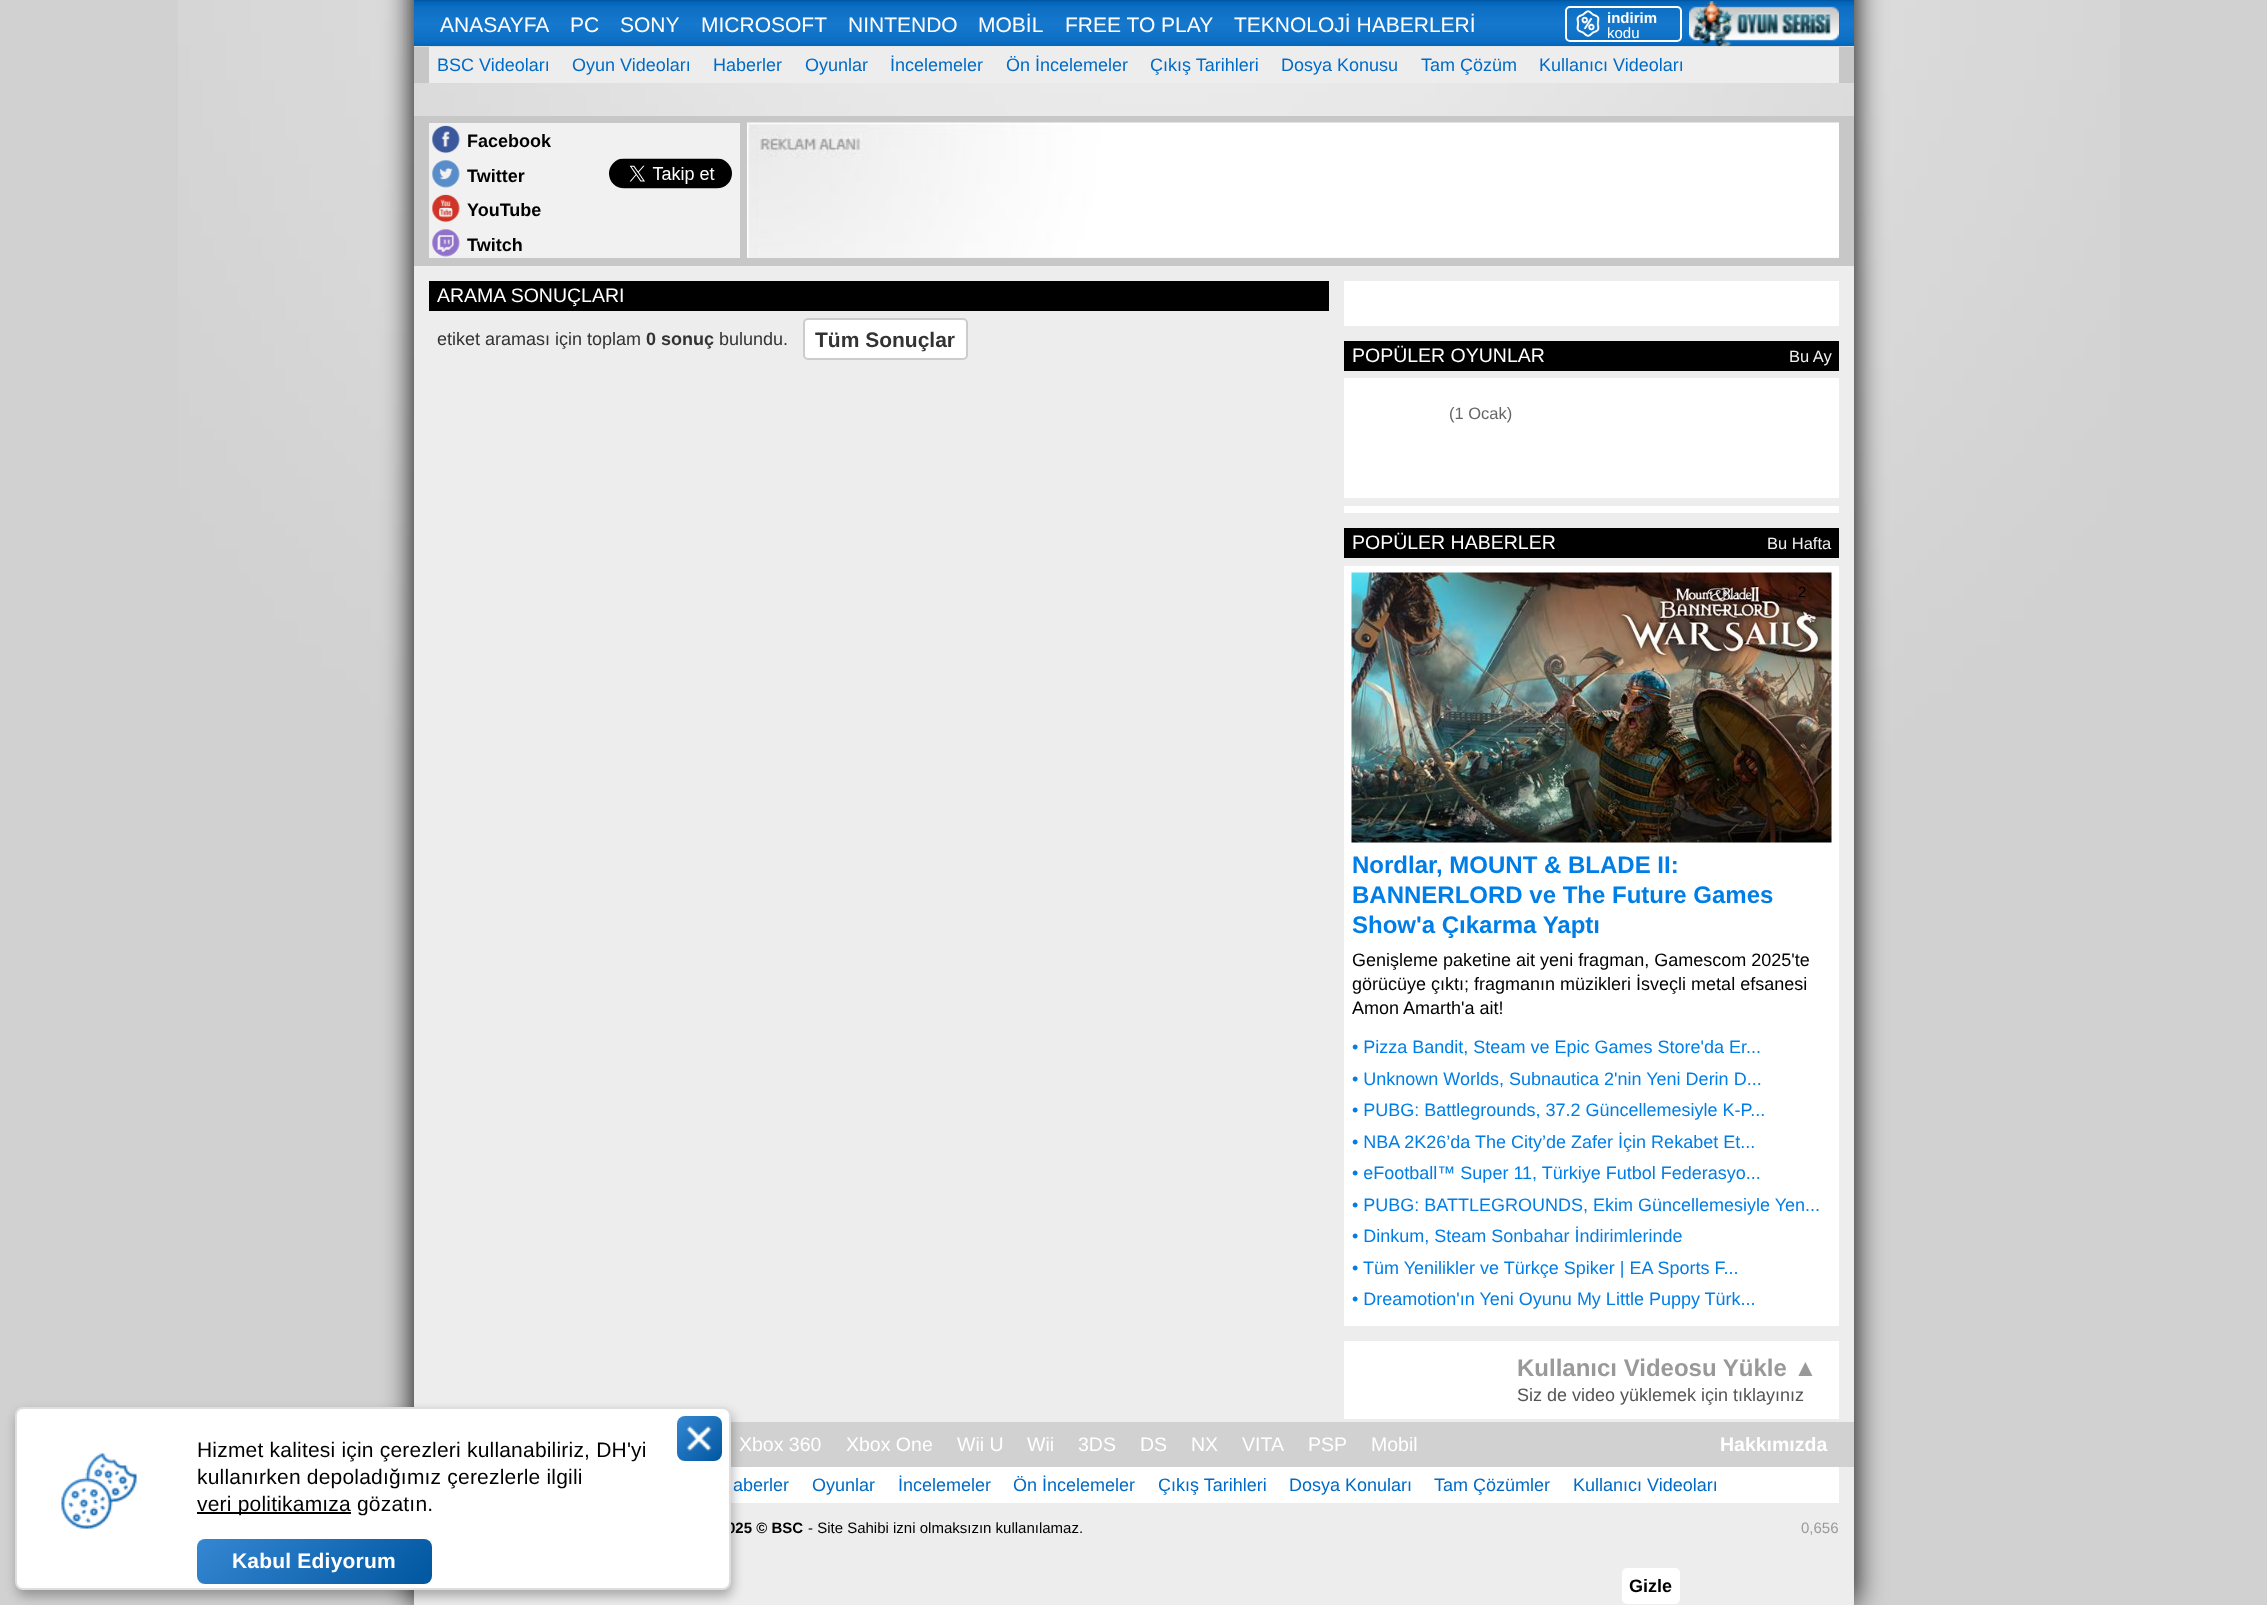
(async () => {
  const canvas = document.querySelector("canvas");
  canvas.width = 2267;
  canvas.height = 1605;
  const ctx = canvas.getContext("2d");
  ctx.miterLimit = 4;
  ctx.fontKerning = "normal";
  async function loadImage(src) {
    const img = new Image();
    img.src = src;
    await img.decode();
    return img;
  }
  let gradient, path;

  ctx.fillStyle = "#d1d1d1";
  ctx.fillRect(0, 0, 2267, 1605);
  ctx.drawImage(await loadImage("img/1.png"), 178, 0, 1942, 801);
  ctx.save();
  path = new Path2D("M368 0H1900V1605H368ZM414-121H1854V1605H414Z");
  ctx.clip(path, "evenodd");
  ctx.fillStyle = "#000000";
  ctx.filter = "blur(15px)";
  ctx.beginPath();
  ctx.rect(414, -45, 1440, 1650);
  ctx.fill();
  ctx.filter = "none";
  ctx.restore();
  for (const [x, y, w, h, color] of [
    [414, 266, 1440, 1156, "#ededed"],
    [731, 1467, 1108, 36, "#ffffff"],
    [414, 1503, 1440, 102, "#ededed"],
  ]) {
    ctx.fillStyle = color;
    ctx.fillRect(x, y, w, h);
  }
  ctx.fillStyle = "rgba(0, 0, 0, 0.3)";
  ctx.filter = "blur(6px)";
  ctx.beginPath();
  ctx.roundRect(17, 1413, 715, 183, 8);
  ctx.fill();
  ctx.filter = "none";
  ctx.drawImage(await loadImage("img/4.png"), 414, 0, 1440, 46);
  ctx.beginPath();
  ctx.roundRect(1566, 7, 115, 34, 4);
  ctx.strokeStyle = "#ffffff";
  ctx.lineWidth = 2;
  ctx.stroke();
  ctx.drawImage(await loadImage("img/5.png"), 1576, 10, 24, 27);
  ctx.drawImage(await loadImage("img/6.png"), 1689, 1, 150, 45);
  for (const [x, y, w, h, color] of [
    [429, 47, 1410, 36, "#ededed"],
    [1839, 47, 15, 36, "#c7c7c7"],
    [414, 47, 15, 36, "#c7c7c7"],
    [414, 116, 1440, 150, "#c7c7c7"],
    [429, 123, 311, 135, "#f1f1f1"],
  ]) {
    ctx.fillStyle = color;
    ctx.fillRect(x, y, w, h);
  }
  ctx.drawImage(await loadImage("img/7.png"), 431, 125, 29, 29);
  ctx.drawImage(await loadImage("img/8.png"), 432, 160, 28, 28);
  ctx.drawImage(await loadImage("img/9.png"), 609, 158, 123, 31);
  ctx.drawImage(await loadImage("img/10.png"), 431, 194, 29, 29);
  ctx.drawImage(await loadImage("img/11.png"), 432, 229, 28, 28);
  ctx.fillRect(747, 257, 1092, 1);
  ctx.drawImage(await loadImage("img/12.png"), 747, 122, 1092, 136);
  ctx.fillStyle = "#000000";
  ctx.fillRect(429, 281, 900, 30);
  ctx.fillStyle = "#ffffff";
  ctx.beginPath();
  ctx.roundRect(804, 319, 163, 40, 4);
  ctx.fill();
  ctx.strokeStyle = "#cccccc";
  ctx.stroke();
  for (const [x, y, w, h, color] of [
    [1344, 281, 495, 45, "#ffffff"],
    [1344, 341, 495, 30, "#000000"],
    [1344, 378, 495, 120, "#ffffff"],
    [1344, 506, 495, 7, "#ffffff"],
    [1344, 528, 495, 30, "#000000"],
    [1344, 566, 495, 760, "#ffffff"],
  ]) {
    ctx.fillStyle = color;
    ctx.fillRect(x, y, w, h);
  }
  ctx.drawImage(await loadImage("img/13.png"), 1351, 572, 481, 271);
  ctx.fillRect(1344, 1341, 495, 78);
  ctx.fillStyle = "#ededed";
  ctx.fillRect(1839, 1467, 15, 36);
  ctx.fillStyle = "#ffffff";
  ctx.beginPath();
  ctx.roundRect(1622, 1568, 58, 36, 5);
  ctx.fill();
  ctx.font = "21px Liberation Sans";
  for (const [text, x, y] of [
    ["ANASAYFA", 440, 32],
    ["PC", 570, 32],
    ["SONY", 620, 32],
    ["MICROSOFT", 701, 32],
    ["NINTENDO", 848, 32],
    ["MOBİL", 978, 32],
    ["FREE TO PLAY", 1065, 32],
    ["TEKNOLOJİ HABERLERİ", 1234, 32],
  ]) {
    ctx.fillText(text, x, y);
  }
  ctx.font = "bold 15px Liberation Sans";
  ctx.fillText("indirim", 1607, 23);
  ctx.font = "15px Liberation Sans";
  ctx.fillText("kodu", 1607, 38);
  ctx.font = "18px Liberation Sans";
  ctx.fillStyle = "#006bc6";
  for (const [text, x, y] of [
    ["BSC Videoları", 437, 71],
    ["Oyun Videoları", 572, 71],
    ["Haberler", 713, 71],
    ["Oyunlar", 805, 71],
    ["İncelemeler", 890, 71],
    ["Ön İncelemeler", 1006, 71],
    ["Çıkış Tarihleri", 1150, 71],
    ["Dosya Konusu", 1281, 71],
    ["Tam Çözüm", 1421, 71],
    ["Kullanıcı Videoları", 1539, 71],
  ]) {
    ctx.fillText(text, x, y);
  }
  ctx.font = "bold 18px Liberation Sans";
  ctx.fillStyle = "#000000";
  for (const [text, x, y] of [
    ["Facebook", 467, 147],
    ["Twitter", 467, 182],
    ["YouTube", 467, 216],
    ["Twitch", 467, 251],
  ]) {
    ctx.fillText(text, x, y);
  }
  ctx.font = "19.5px Liberation Sans";
  ctx.fillStyle = "#ffffff";
  ctx.fillText("ARAMA SONUÇLARI", 437, 302);
  ctx.font = "18px Liberation Sans";
  ctx.fillStyle = "#333333";
  ctx.fillText("etiket araması için toplam", 437, 345);
  ctx.font = "bold 18px Liberation Sans";
  ctx.fillText("0 sonuç", 646, 345);
  ctx.font = "18px Liberation Sans";
  ctx.fillText("bulundu.", 719, 345);
  ctx.font = "bold 21px Liberation Sans";
  ctx.fillText("Tüm Sonuçlar", 815, 347);
  ctx.font = "19.5px Liberation Sans";
  ctx.fillStyle = "#ffffff";
  ctx.fillText("POPÜLER OYUNLAR", 1352, 362);
  ctx.font = "16.5px Liberation Sans";
  ctx.fillStyle = "#f1f1f1";
  ctx.fillText("Bu Ay", 1789, 362);
  ctx.fillStyle = "#666666";
  ctx.fillText("(1 Ocak)", 1449, 419);
  ctx.font = "19.5px Liberation Sans";
  ctx.fillStyle = "#ffffff";
  ctx.fillText("POPÜLER HABERLER", 1352, 549);
  ctx.font = "16.5px Liberation Sans";
  ctx.fillStyle = "#f1f1f1";
  ctx.fillText("Bu Hafta", 1767, 549);
  ctx.font = "15px Liberation Sans";
  ctx.fillStyle = "#000000";
  ctx.fillText("2", 1798, 597);
  ctx.font = "bold 24px Liberation Sans";
  ctx.fillStyle = "#007ee7";
  for (const [text, x, y] of [
    ["Nordlar, MOUNT & BLADE II:", 1352, 873],
    ["BANNERLORD ve The Future Games", 1352, 903],
    ["Show'a Çıkarma Yaptı", 1352, 933],
  ]) {
    ctx.fillText(text, x, y);
  }
  ctx.font = "18px Liberation Sans";
  ctx.fillStyle = "#000000";
  for (const [text, x, y] of [
    ["Genişleme paketine ait yeni fragman, Gamescom 2025'te", 1352, 966],
    ["görücüye çıktı; fragmanın müzikleri İsveçli metal efsanesi", 1352, 990],
    ["Amon Amarth'a ait!", 1352, 1014],
  ]) {
    ctx.fillText(text, x, y);
  }
  ctx.fillStyle = "#007ee7";
  for (const [text, x, y] of [
    ["• Pizza Bandit, Steam ve Epic Games Store'da Er...", 1352, 1053],
    ["• Unknown Worlds, Subnautica 2'nin Yeni Derin D...", 1352, 1085],
    ["• PUBG: Battlegrounds, 37.2 Güncellemesiyle K-P...", 1352, 1116],
    ["• NBA 2K26’da The City’de Zafer İçin Rekabet Et...", 1352, 1148],
    ["• eFootball™ Super 11, Türkiye Futbol Federasyo...", 1352, 1179],
    ["• PUBG: BATTLEGROUNDS, Ekim Güncellemesiyle Yen...", 1352, 1211],
    ["• Dinkum, Steam Sonbahar İndirimlerinde", 1352, 1242],
    ["• Tüm Yenilikler ve Türkçe Spiker | EA Sports F...", 1352, 1274],
    ["• Dreamotion'ın Yeni Oyunu My Little Puppy Türk...", 1352, 1305],
  ]) {
    ctx.fillText(text, x, y);
  }
  ctx.font = "bold 24px Liberation Sans";
  ctx.fillStyle = "#999999";
  ctx.fillText("Kullanıcı Videosu Yükle ▲", 1517, 1376);
  ctx.font = "18px Liberation Sans";
  ctx.fillStyle = "#555555";
  ctx.fillText("Siz de video yüklemek için tıklayınız", 1517, 1401);
  ctx.font = "19.5px Liberation Sans";
  ctx.fillStyle = "#ffffff";
  for (const [text, x, y] of [
    ["Xbox 360", 739, 1451],
    ["Xbox One", 846, 1451],
    ["Wii U", 957, 1451],
    ["Wii", 1027, 1451],
    ["3DS", 1078, 1451],
    ["DS", 1140, 1451],
    ["NX", 1191, 1451],
    ["VITA", 1242, 1451],
    ["PSP", 1308, 1451],
    ["Mobil", 1371, 1451],
  ]) {
    ctx.fillText(text, x, y);
  }
  ctx.font = "bold 19.5px Liberation Sans";
  ctx.fillText("Hakkımızda", 1720, 1451);
  ctx.font = "18px Liberation Sans";
  ctx.fillStyle = "#006bc6";
  for (const [text, x, y] of [
    ["aberler", 733, 1491],
    ["Oyunlar", 812, 1491],
    ["İncelemeler", 898, 1491],
    ["Ön İncelemeler", 1013, 1491],
    ["Çıkış Tarihleri", 1158, 1491],
    ["Dosya Konuları", 1289, 1491],
    ["Tam Çözümler", 1434, 1491],
    ["Kullanıcı Videoları", 1573, 1491],
  ]) {
    ctx.fillText(text, x, y);
  }
  ctx.font = "bold 15px Liberation Sans";
  ctx.fillStyle = "#000000";
  ctx.fillText("025 © BSC", 727, 1533);
  ctx.fillStyle = "#ffffff";
  ctx.beginPath();
  ctx.roundRect(16, 1408, 714, 181, 7);
  ctx.fill();
  ctx.strokeStyle = "#dedede";
  ctx.stroke();
  gradient = ctx.createLinearGradient(677, 1416, 722, 1461);
  gradient.addColorStop(0, "#3587d2");
  gradient.addColorStop(1, "#0156a0");
  ctx.fillStyle = gradient;
  ctx.beginPath();
  ctx.roundRect(677, 1416, 45, 45, 8);
  ctx.fill();
  ctx.drawImage(await loadImage("img/3.png"), 686, 1426, 26, 25);
  ctx.drawImage(await loadImage("img/2.png"), 61, 1453, 76, 76);
  gradient = ctx.createLinearGradient(244, 1491, 384, 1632);
  gradient.addColorStop(0, "#3587d2");
  gradient.addColorStop(1, "#0156a0");
  ctx.fillStyle = gradient;
  ctx.beginPath();
  ctx.roundRect(197, 1539, 235, 45, 8);
  ctx.fill();
  ctx.letterSpacing = "0.2px";
  ctx.font = "bold 21px Liberation Sans";
  ctx.fillStyle = "#ffffff";
  ctx.fillText("Kabul Ediyorum", 232, 1568);
  ctx.fillStyle = "#000000";
  ctx.fillRect(197, 1512, 154, 2);
  ctx.font = "21px Liberation Sans";
  for (const [text, x, y] of [
    ["veri politikamıza gözatın.", 197, 1511],
    ["kullanırken depoladığımız çerezlerle ilgili", 197, 1484],
    ["Hizmet kalitesi için çerezleri kullanabiliriz, DH'yi", 197, 1457],
  ]) {
    ctx.fillText(text, x, y);
  }
  ctx.letterSpacing = "0px";
  ctx.font = "15px Liberation Sans";
  ctx.fillText("- Site Sahibi izni olmaksızın kullanılamaz.", 808, 1533);
  ctx.fillStyle = "#999999";
  ctx.fillText("0,656", 1801, 1533);
  ctx.font = "bold 18px Liberation Sans";
  ctx.fillStyle = "#000000";
  ctx.fillText("Gizle", 1629, 1592);
})();
